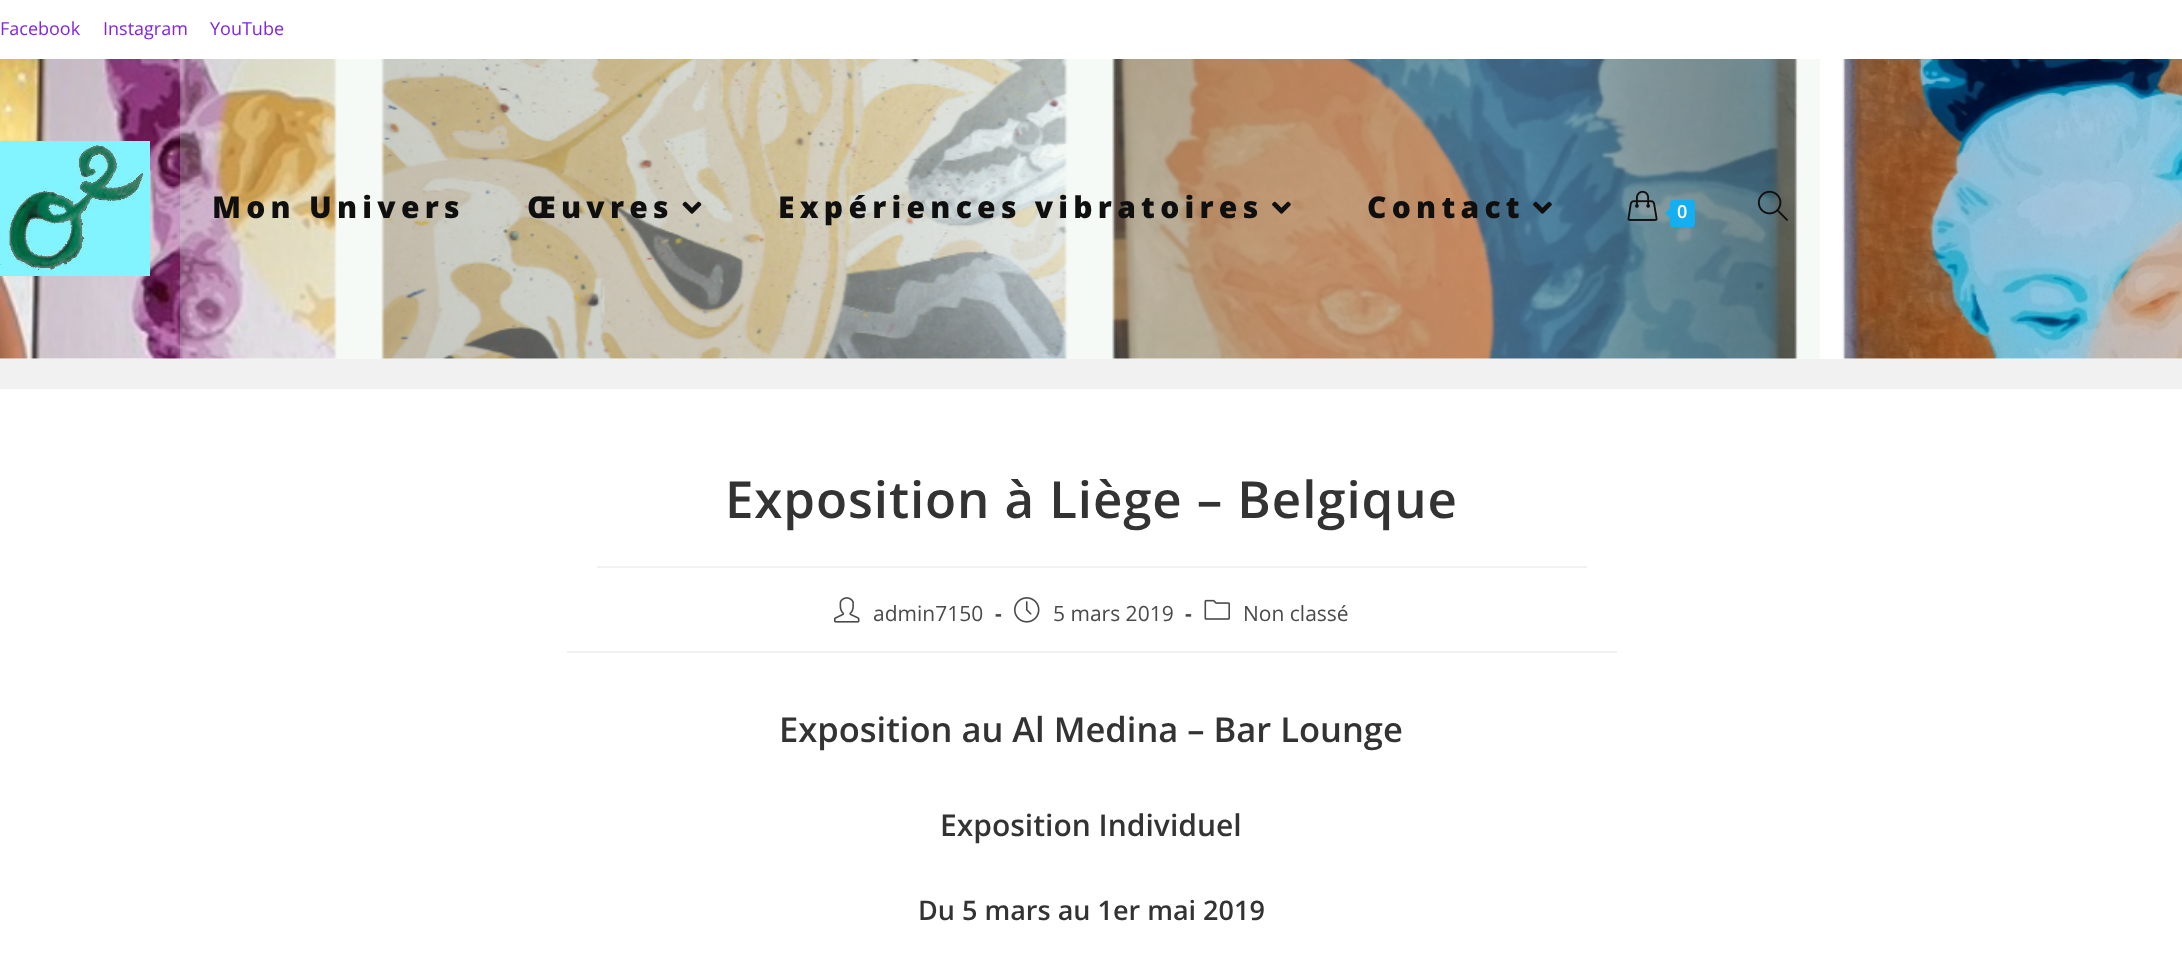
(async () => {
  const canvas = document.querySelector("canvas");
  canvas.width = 2182;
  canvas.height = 957;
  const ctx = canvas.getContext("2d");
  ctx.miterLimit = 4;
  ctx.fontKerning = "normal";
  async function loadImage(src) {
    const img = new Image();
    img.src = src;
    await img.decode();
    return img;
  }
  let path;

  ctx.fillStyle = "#f1f1f1";
  ctx.fillRect(0, 0, 2182, 957);
  ctx.fillStyle = "#ffffff";
  ctx.fillRect(0, 0, 2182, 59);
  ctx.fillRect(0, 358, 2182, 1);
  ctx.drawImage(await loadImage("img/1.png"), 0, 59, 2182, 300);
  ctx.drawImage(await loadImage("img/2.png"), 0, 141, 150, 135);
  ctx.fillStyle = "rgba(215, 237, 220, 0.26)";
  ctx.fillRect(180, 59, 317, 300);
  ctx.fillRect(497, 59, 249, 300);
  ctx.drawImage(await loadImage("img/3.png"), 682, 201, 20, 13);
  ctx.fillRect(746, 59, 589, 300);
  ctx.drawImage(await loadImage("img/4.png"), 1272, 201, 19, 13);
  ctx.fillRect(1335, 59, 261, 300);
  ctx.drawImage(await loadImage("img/5.png"), 1533, 201, 19, 13);
  ctx.fillRect(1596, 59, 131, 300);
  ctx.drawImage(await loadImage("img/6.png"), 1627, 190, 31, 31);
  ctx.fillStyle = "#13aff0";
  ctx.beginPath();
  ctx.roundRect(1670, 200, 25, 27, 3);
  ctx.fill();
  path = new Path2D("M1672.5 205.5V220.5L1665 213Z");
  ctx.fill(path);
  ctx.fillStyle = "rgba(215, 237, 220, 0.26)";
  ctx.fillRect(1727, 59, 93, 300);
  ctx.drawImage(await loadImage("img/7.png"), 1757, 190, 31, 31);
  for (const [x, y, w, h, color] of [
    [0, 389, 2182, 568, "#ffffff"],
    [597, 566, 990, 2, "#f1f1f1"],
    [567, 651, 1050, 2, "#f1f1f1"],
  ]) {
    ctx.fillStyle = color;
    ctx.fillRect(x, y, w, h);
  }
  ctx.drawImage(await loadImage("img/8.png"), 834, 597, 26, 26);
  ctx.drawImage(await loadImage("img/9.png"), 1014, 597, 26, 26);
  ctx.drawImage(await loadImage("img/10.png"), 1204, 599, 26, 21);
  ctx.font = "18px Open Sans";
  ctx.fillStyle = "#8224e3";
  for (const [text, x, y] of [
    ["Facebook", 0, 35],
    ["Instagram", 103, 35],
    ["YouTube", 210, 35],
  ]) {
    ctx.fillText(text, x, y);
  }
  ctx.letterSpacing = "5.25px";
  ctx.font = "800 30px Open Sans";
  ctx.fillStyle = "#0f0f0f";
  for (const [text, x, y] of [
    ["Mon Univers", 212, 218],
    ["Œuvres", 527, 218],
    ["Expériences vibratoires", 778, 218],
    ["Contact", 1367, 218],
  ]) {
    ctx.fillText(text, x, y);
  }
  ctx.letterSpacing = "0px";
  ctx.font = "600 18px Open Sans";
  ctx.fillStyle = "#ffffff";
  ctx.fillText("0", 1677, 218);
  ctx.letterSpacing = "0.9px";
  ctx.font = "600 51px Open Sans";
  ctx.fillStyle = "#333333";
  ctx.fillText("Exposition à Liège – Belgique", 725, 518);
  ctx.letterSpacing = "0px";
  ctx.font = "21px Open Sans";
  ctx.fillStyle = "#4a4a4a";
  ctx.fillText("admin7150", 873, 621);
  ctx.font = "bold 21px Open Sans";
  ctx.fillText("-", 995, 621);
  ctx.font = "21px Open Sans";
  ctx.fillText("5 mars 2019", 1053, 621);
  ctx.font = "bold 21px Open Sans";
  ctx.fillText("-", 1185, 621);
  ctx.font = "21px Open Sans";
  ctx.fillText("Non classé", 1243, 621);
  ctx.font = "600 34.5px Open Sans";
  ctx.fillStyle = "#333333";
  ctx.fillText("Exposition au Al Medina – Bar Lounge", 779, 742);
  ctx.font = "600 30px Open Sans";
  ctx.fillText("Exposition Individuel", 940, 836);
  ctx.font = "600 27px Open Sans";
  ctx.fillText("Du 5 mars au 1er mai 2019", 918, 920);
})();
